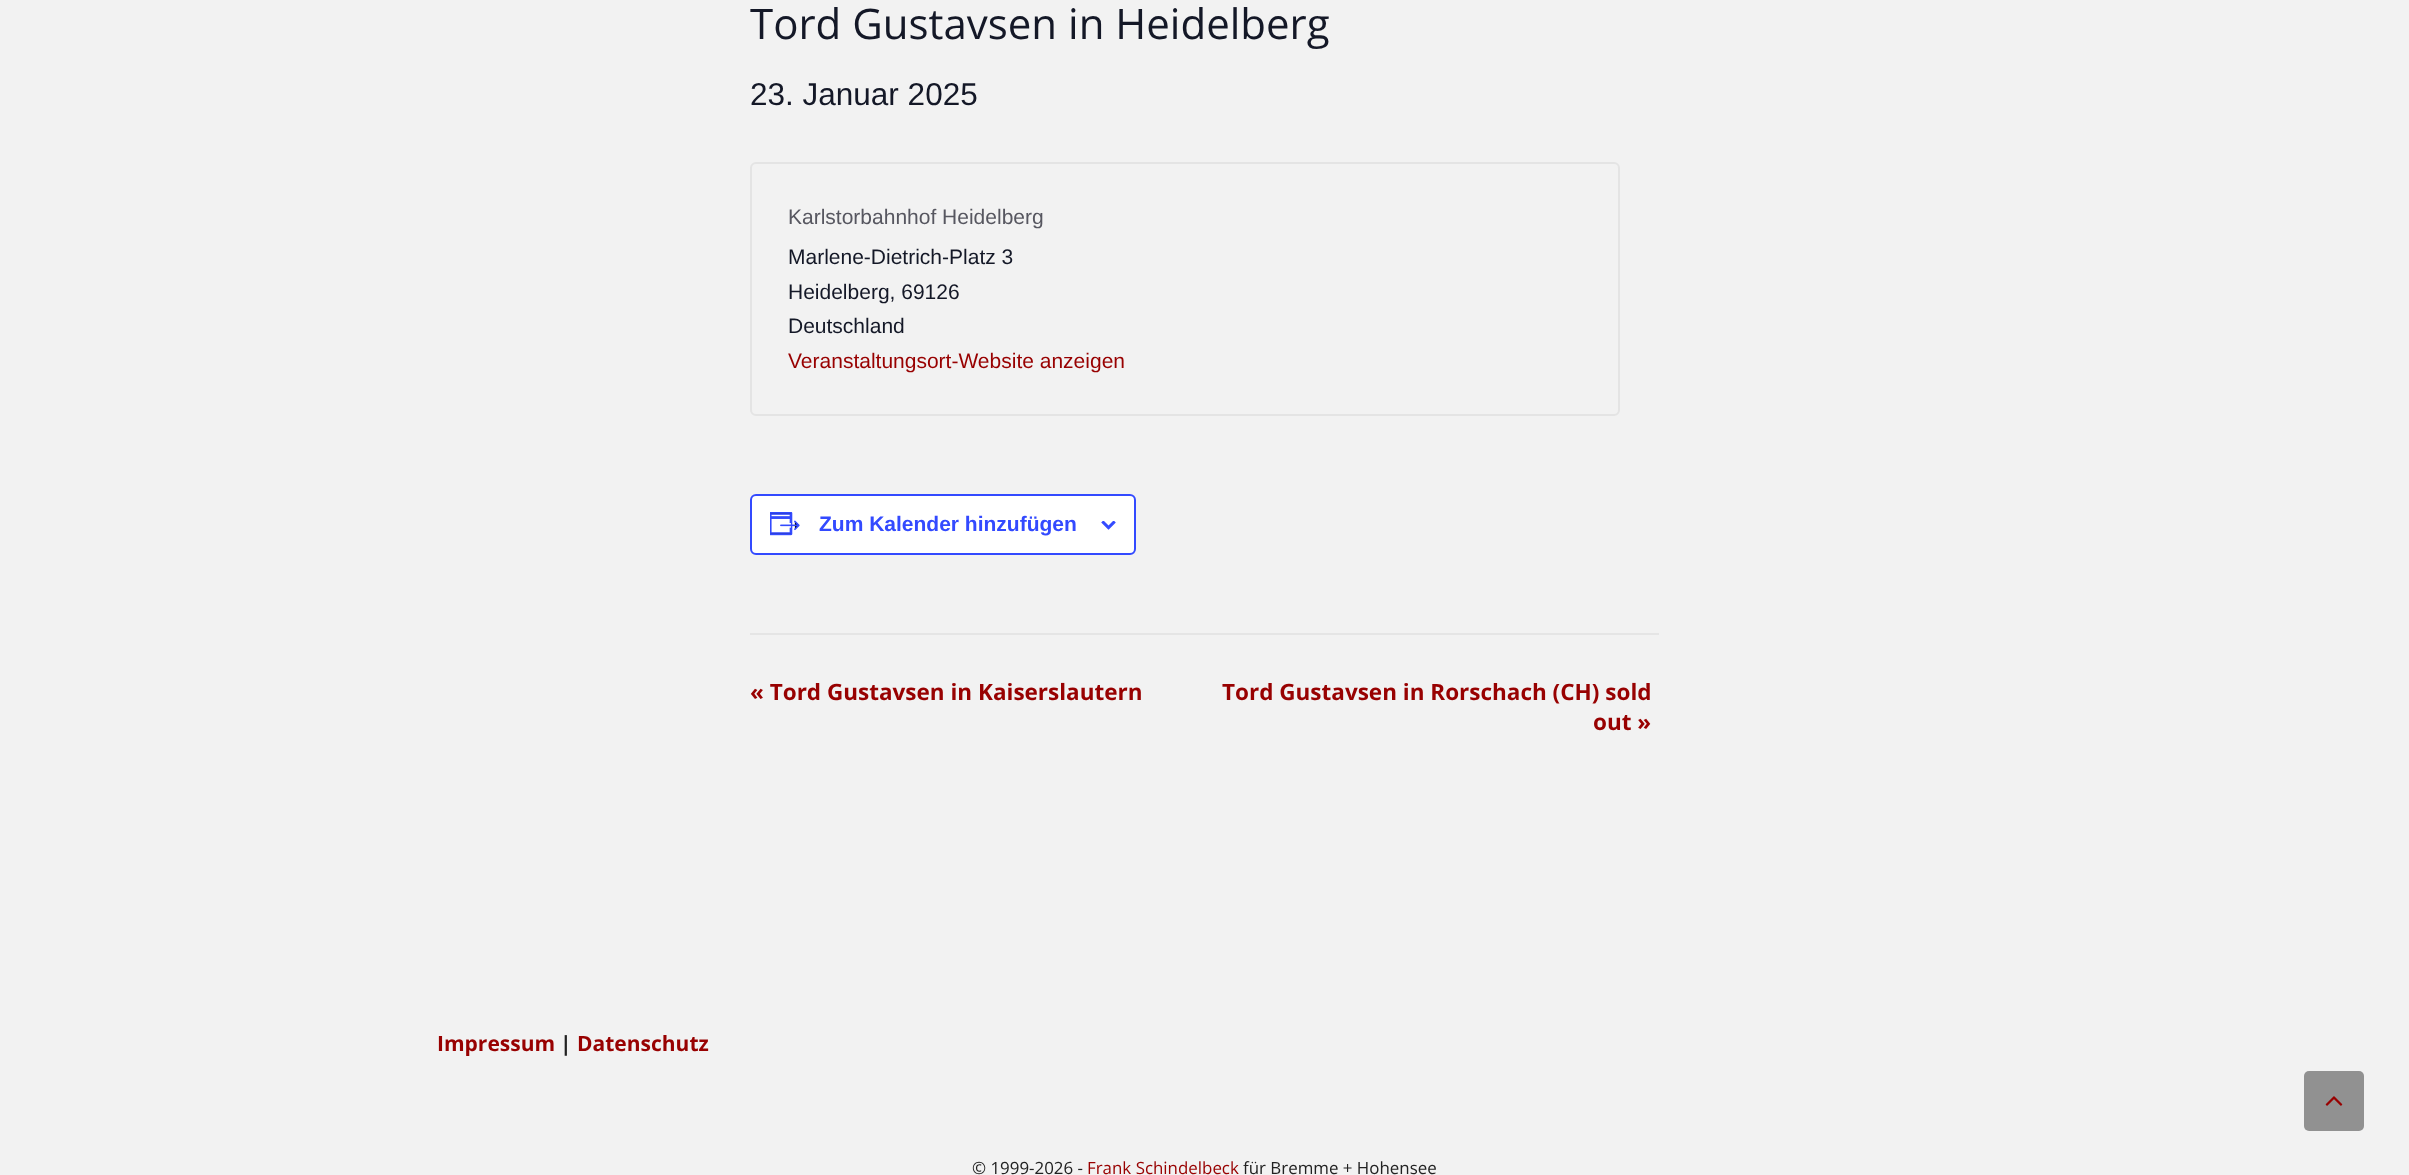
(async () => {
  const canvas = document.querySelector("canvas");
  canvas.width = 2409;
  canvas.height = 1175;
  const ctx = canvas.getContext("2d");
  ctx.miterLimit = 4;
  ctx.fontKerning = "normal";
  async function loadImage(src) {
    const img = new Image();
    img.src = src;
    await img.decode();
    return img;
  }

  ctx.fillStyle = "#f2f2f2";
  ctx.fillRect(0, 0, 2409, 1175);
  ctx.beginPath();
  ctx.roundRect(751, 163, 868, 252, 5);
  ctx.strokeStyle = "#e4e4e4";
  ctx.lineWidth = 2;
  ctx.stroke();
  ctx.fillStyle = "#ffffff";
  ctx.beginPath();
  ctx.roundRect(751, 495, 384, 59, 5);
  ctx.fill();
  ctx.strokeStyle = "#334aff";
  ctx.stroke();
  ctx.drawImage(await loadImage("img/1.png"), 770, 512, 30, 24);
  ctx.drawImage(await loadImage("img/2.png"), 1101, 521, 15, 9);
  ctx.fillStyle = "#e5e5e5";
  ctx.fillRect(750, 633, 909, 2);
  ctx.fillStyle = "#919191";
  ctx.beginPath();
  ctx.roundRect(2304, 1071, 60, 60, 5);
  ctx.fill();
  ctx.drawImage(await loadImage("img/3.png"), 2325, 1096, 18, 10);
  ctx.font = "42px Open Sans";
  ctx.fillStyle = "#141827";
  ctx.fillText("Tord Gustavsen in Heidelberg", 750, 39);
  ctx.font = "31.5px Liberation Sans";
  ctx.fillText("23. Januar 2025", 750, 105);
  ctx.font = "21px Liberation Sans";
  ctx.fillStyle = "#575760";
  ctx.fillText("Karlstorbahnhof Heidelberg", 788, 224);
  ctx.fillStyle = "#141827";
  for (const [text, x, y] of [
    ["Marlene-Dietrich-Platz 3", 788, 264],
    ["Heidelberg, 69126", 788, 299],
    ["Deutschland", 788, 333],
  ]) {
    ctx.fillText(text, x, y);
  }
  ctx.fillStyle = "#980101";
  ctx.fillText("Veranstaltungsort-Website anzeigen", 788, 368);
  ctx.font = "bold 21px Liberation Sans";
  ctx.fillStyle = "#334aff";
  ctx.fillText("Zum Kalender hinzufügen", 819, 531);
  ctx.font = "bold 22.5px Open Sans";
  ctx.fillStyle = "#980101";
  for (const [text, x, y] of [
    ["« Tord Gustavsen in Kaiserslautern", 750, 700],
    ["Tord Gustavsen in Rorschach (CH) sold", 1222, 700],
    ["out »", 1593, 730],
  ]) {
    ctx.fillText(text, x, y);
  }
  ctx.font = "bold 21px Open Sans";
  ctx.fillText("Impressum", 437, 1051);
  ctx.fillStyle = "#222222";
  ctx.fillText("|", 560, 1051);
  ctx.fillStyle = "#980101";
  ctx.fillText("Datenschutz", 577, 1051);
  ctx.font = "16.9px Open Sans";
  ctx.fillStyle = "#222222";
  ctx.fillText("© 1999-2026 -", 972, 1174);
  ctx.fillStyle = "#980101";
  ctx.fillText("Frank Schindelbeck", 1087, 1174);
  ctx.fillStyle = "#222222";
  ctx.fillText("für Bremme + Hohensee", 1243, 1174);
})();
